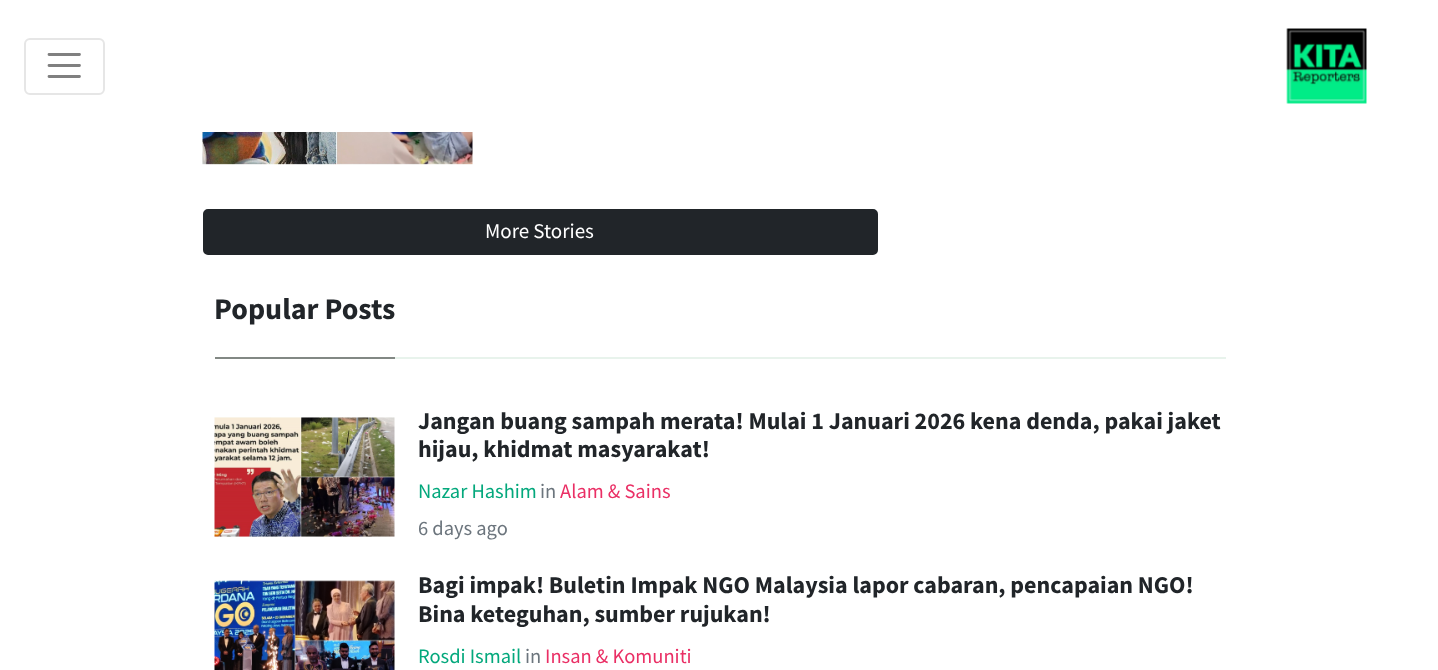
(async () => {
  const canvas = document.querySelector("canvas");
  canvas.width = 1438;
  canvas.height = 670;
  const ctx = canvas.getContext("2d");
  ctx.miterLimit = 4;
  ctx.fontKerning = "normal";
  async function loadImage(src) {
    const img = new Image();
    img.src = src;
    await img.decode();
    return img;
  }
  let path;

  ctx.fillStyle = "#ffffff";
  ctx.fillRect(0, 0, 1438, 670);
  ctx.beginPath();
  ctx.roundRect(25, 39, 79, 55, 5);
  ctx.strokeStyle = "#e6e6e6";
  ctx.lineWidth = 2;
  ctx.stroke();
  path = new Path2D("M49 54.5H79.5M49 65.5H79.5M49 76.5H79.5");
  ctx.strokeStyle = "#808080";
  ctx.lineWidth = 2.8;
  ctx.lineCap = "round";
  ctx.stroke(path);
  ctx.drawImage(await loadImage("img/1.png"), 1286, 28, 81, 76);
  ctx.drawImage(await loadImage("img/2.png"), 202, 132, 271, 33);
  ctx.fillStyle = "#212529";
  ctx.beginPath();
  ctx.roundRect(204, 210, 673, 44, 4);
  ctx.fill();
  ctx.strokeStyle = "#212529";
  ctx.lineWidth = 2;
  ctx.stroke();
  ctx.fillStyle = "#e8f3ec";
  ctx.fillRect(395, 357, 831, 2);
  ctx.fillStyle = "#828884";
  ctx.fillRect(215, 357, 180, 2);
  ctx.drawImage(await loadImage("img/3.png"), 214, 417, 181, 120);
  ctx.drawImage(await loadImage("img/4.png"), 214, 580, 181, 90);
  ctx.font = "21px Source Sans Pro";
  ctx.fillStyle = "#ffffff";
  ctx.fillText("More Stories", 485, 238);
  ctx.font = "bold 30px Source Sans Pro";
  ctx.fillStyle = "#212529";
  ctx.fillText("Popular Posts", 214, 319);
  ctx.font = "bold 24px Source Sans Pro";
  ctx.fillText("Jangan buang sampah merata! Mulai 1 Januari 2026 kena denda, pakai jaket", 418, 429);
  ctx.fillText("hijau, khidmat masyarakat!", 418, 457);
  ctx.font = "20.5px Source Sans Pro";
  ctx.fillStyle = "#03a87c";
  ctx.fillText("Nazar Hashim", 418, 498);
  ctx.fillStyle = "#6c757d";
  ctx.fillText("in", 540, 498);
  ctx.fillStyle = "#ea2f65";
  ctx.fillText("Alam & Sains", 560, 498);
  ctx.fillStyle = "#6c757d";
  ctx.fillText("6 days ago", 418, 535);
  ctx.font = "bold 24px Source Sans Pro";
  ctx.fillStyle = "#212529";
  ctx.fillText("Bagi impak! Buletin Impak NGO Malaysia lapor cabaran, pencapaian NGO!", 418, 593);
  ctx.fillText("Bina keteguhan, sumber rujukan!", 418, 622);
  ctx.font = "20.5px Source Sans Pro";
  ctx.fillStyle = "#03a87c";
  ctx.fillText("Rosdi Ismail", 418, 663);
  ctx.fillStyle = "#6c757d";
  ctx.fillText("in", 525, 663);
  ctx.fillStyle = "#ea2f65";
  ctx.fillText("Insan & Komuniti", 545, 663);
})();
